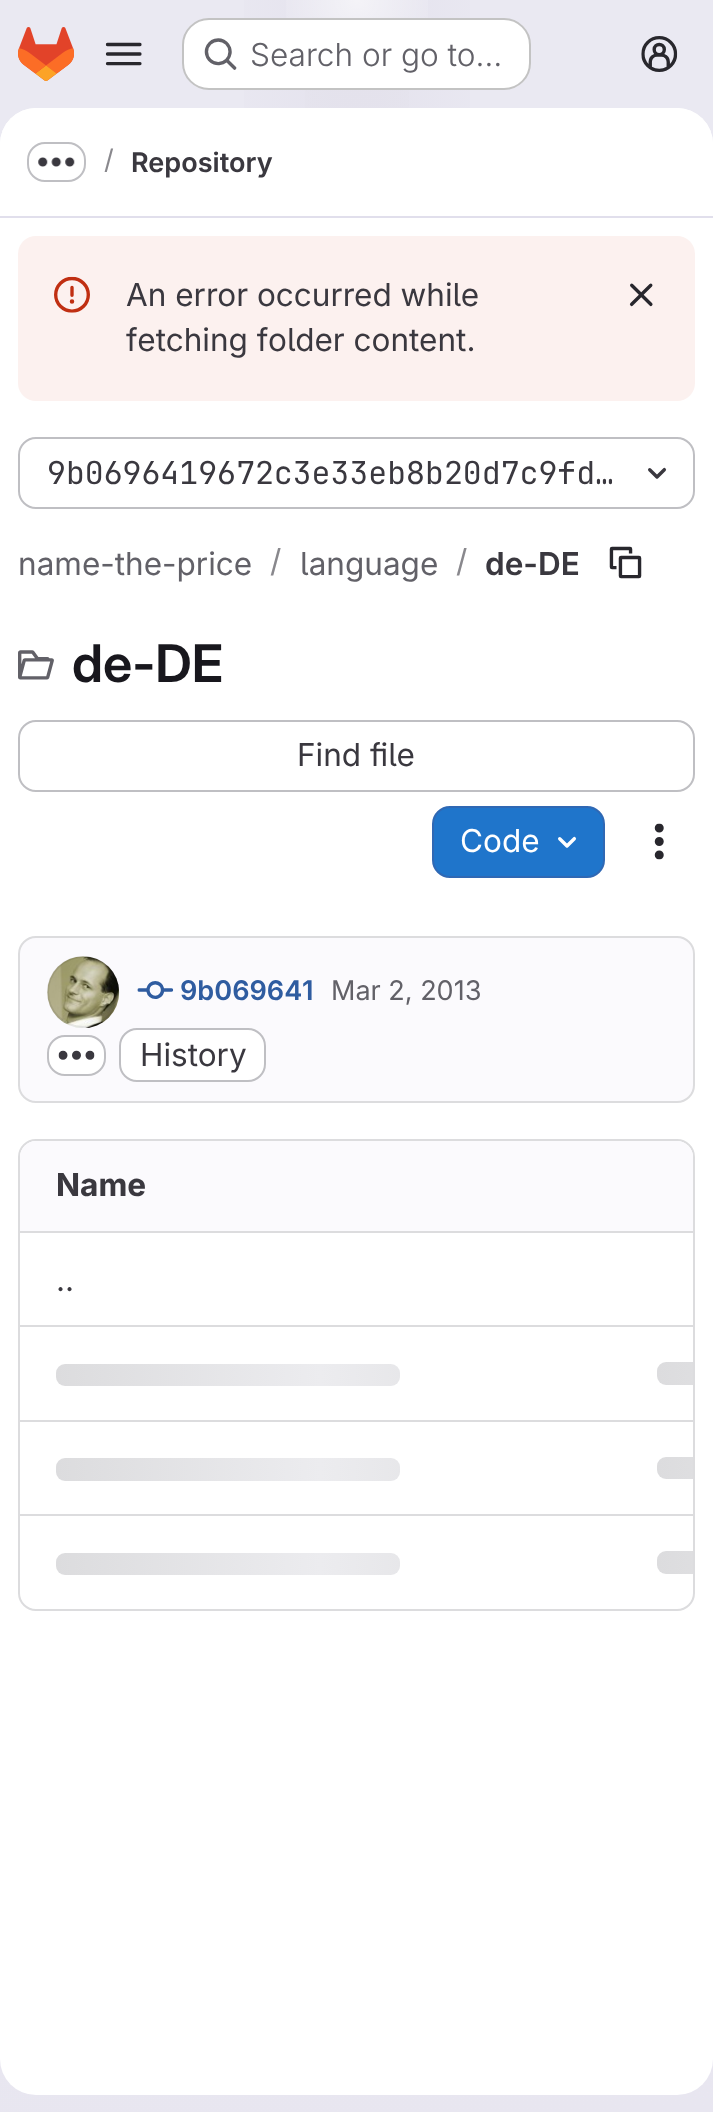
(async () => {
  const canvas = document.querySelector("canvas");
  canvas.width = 713;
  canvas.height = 2112;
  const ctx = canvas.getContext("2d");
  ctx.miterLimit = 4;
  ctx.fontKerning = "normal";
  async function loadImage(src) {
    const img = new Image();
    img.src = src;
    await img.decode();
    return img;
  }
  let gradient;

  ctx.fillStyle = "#ffffff";
  ctx.fillRect(0, 0, 713, 2112);
  gradient = ctx.createLinearGradient(548, 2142, 165, -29);
  gradient.addColorStop(0, "#e8e6f0");
  gradient.addColorStop(0.7, "#eae9f2");
  ctx.fillStyle = gradient;
  ctx.fillRect(0, 0, 713, 2112);
  gradient = ctx.createRadialGradient(357, 0, 0, 357, 0, 357);
  gradient.addColorStop(0, "#e4e2ed");
  gradient.addColorStop(0.44, "rgba(228, 226, 237, 0)");
  ctx.fillStyle = gradient;
  ctx.beginPath();
  ctx.rect(244, 0, 226, 108);
  ctx.save();
  ctx.clip();
  ctx.scale(1, 2113 / 357);
  ctx.fillRect(0, 0, 713, 357);
  ctx.restore();
  gradient = ctx.createRadialGradient(357, 0, 0, 357, 0, 357);
  gradient.addColorStop(0, "#e4e2ec");
  gradient.addColorStop(0.32, "rgba(228, 226, 236, 0)");
  ctx.fillStyle = gradient;
  ctx.beginPath();
  ctx.rect(305, 17, 104, 91);
  ctx.save();
  ctx.clip();
  ctx.scale(1, 2113 / 357);
  ctx.fillRect(0, 0, 713, 357);
  ctx.restore();
  gradient = ctx.createRadialGradient(357, 0, 0, 357, 0, 2143);
  gradient.addColorStop(0, "rgba(255, 255, 255, 0.6)");
  gradient.addColorStop(0.04, "rgba(255, 255, 255, 0)");
  ctx.fillStyle = gradient;
  ctx.fillRect(286, 0, 142, 73);
  ctx.drawImage(await loadImage("img/1.png"), 18, 27, 56, 54);
  ctx.drawImage(await loadImage("img/2.png"), 105, 42, 37, 24);
  ctx.fillStyle = "#ffffff";
  ctx.beginPath();
  ctx.roundRect(182, 18, 349, 72, 27);
  ctx.fill();
  ctx.beginPath();
  ctx.roundRect(183, 19, 347, 70, 26);
  ctx.strokeStyle = "rgba(5, 5, 6, 0.24)";
  ctx.lineWidth = 2;
  ctx.stroke();
  ctx.drawImage(await loadImage("img/3.png"), 204, 38, 33, 32);
  ctx.drawImage(await loadImage("img/4.png"), 641, 36, 37, 36);
  ctx.beginPath();
  ctx.roundRect(0, 108, 713, 1987, 36);
  ctx.fill();
  ctx.beginPath();
  ctx.roundRect(0, 108, 713, 110, [36, 36, 0, 0]);
  ctx.fill();
  ctx.fillStyle = "#e1dfec";
  ctx.fillRect(0, 216, 713, 2);
  ctx.beginPath();
  ctx.roundRect(28, 143, 57, 38, 17);
  ctx.strokeStyle = "#bfbfc3";
  ctx.stroke();
  ctx.drawImage(await loadImage("img/5.png"), 38, 157, 37, 10);
  ctx.fillStyle = "#fcf1ef";
  ctx.beginPath();
  ctx.roundRect(18, 236, 677, 165, 18);
  ctx.fill();
  ctx.drawImage(await loadImage("img/6.png"), 54, 276, 36, 37);
  ctx.drawImage(await loadImage("img/7.png"), 629, 283, 24, 24);
  ctx.beginPath();
  ctx.roundRect(19, 438, 675, 70, 17);
  ctx.stroke();
  ctx.drawImage(await loadImage("img/8.png"), 648, 467, 19, 12);
  ctx.drawImage(await loadImage("img/9.png"), 609, 546, 33, 33);
  ctx.drawImage(await loadImage("img/10.png"), 18, 650, 36, 30);
  ctx.beginPath();
  ctx.roundRect(19, 721, 675, 70, 17);
  ctx.stroke();
  ctx.fillStyle = "#1f75cb";
  ctx.beginPath();
  ctx.roundRect(433, 807, 171, 70, 17);
  ctx.fill();
  ctx.strokeStyle = "#2f68b4";
  ctx.stroke();
  ctx.drawImage(await loadImage("img/11.png"), 558, 836, 19, 12);
  ctx.drawImage(await loadImage("img/12.png"), 654, 823, 10, 37);
  ctx.fillStyle = "#fbfafd";
  ctx.beginPath();
  ctx.roundRect(19, 937, 675, 165, 17);
  ctx.fill();
  ctx.strokeStyle = "#dcdcde";
  ctx.stroke();
  ctx.drawImage(await loadImage("img/13.png"), 47, 956, 73, 72);
  ctx.beginPath();
  ctx.arc(83, 992, 35, 0, Math.PI * 2);
  ctx.strokeStyle = "rgba(5, 5, 6, 0.08)";
  ctx.stroke();
  ctx.drawImage(await loadImage("img/14.png"), 137, 981, 37, 18);
  ctx.fillStyle = "#ffffff";
  ctx.beginPath();
  ctx.roundRect(48, 1036, 57, 39, 17);
  ctx.fill();
  ctx.strokeStyle = "#bfbfc3";
  ctx.stroke();
  ctx.drawImage(await loadImage("img/15.png"), 58, 1050, 37, 10);
  ctx.beginPath();
  ctx.roundRect(120, 1029, 145, 52, 17);
  ctx.fill();
  ctx.stroke();
  ctx.beginPath();
  ctx.roundRect(19, 1140, 675, 470, 17);
  ctx.strokeStyle = "#dcdcde";
  ctx.stroke();
  ctx.fillStyle = "#fbfafd";
  ctx.beginPath();
  ctx.roundRect(20, 1141, 601, 90, [16, 0, 0, 0]);
  ctx.fill();
  ctx.beginPath();
  ctx.roundRect(621, 1141, 72, 90, [0, 16, 0, 0]);
  ctx.fill();
  ctx.fillStyle = "#dcdcde";
  ctx.fillRect(20, 1231, 673, 2);
  ctx.fillRect(20, 1325, 673, 2);
  gradient = ctx.createLinearGradient(657, 1362, 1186, 1362);
  gradient.addColorStop(0, "#dcdcde");
  gradient.addColorStop(0.5, "#ececef");
  gradient.addColorStop(1, "#dcdcde");
  ctx.fillStyle = gradient;
  ctx.beginPath();
  ctx.roundRect(657, 1362, 36, 23, [9, 0, 0, 9]);
  ctx.fill();
  gradient = ctx.createLinearGradient(56, 1364, 585, 1364);
  gradient.addColorStop(0, "#dcdcde");
  gradient.addColorStop(0.5, "#ececef");
  gradient.addColorStop(1, "#dcdcde");
  ctx.fillStyle = gradient;
  ctx.beginPath();
  ctx.roundRect(56, 1364, 344, 22, 9);
  ctx.fill();
  ctx.fillStyle = "#dcdcde";
  ctx.fillRect(20, 1420, 673, 2);
  gradient = ctx.createLinearGradient(657, 1457, 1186, 1457);
  gradient.addColorStop(0, "#dcdcde");
  gradient.addColorStop(0.5, "#ececef");
  gradient.addColorStop(1, "#dcdcde");
  ctx.fillStyle = gradient;
  ctx.beginPath();
  ctx.roundRect(657, 1457, 36, 22, [9, 0, 0, 9]);
  ctx.fill();
  gradient = ctx.createLinearGradient(56, 1458, 585, 1458);
  gradient.addColorStop(0, "#dcdcde");
  gradient.addColorStop(0.5, "#ececef");
  gradient.addColorStop(1, "#dcdcde");
  ctx.fillStyle = gradient;
  ctx.beginPath();
  ctx.roundRect(56, 1458, 344, 23, 9);
  ctx.fill();
  ctx.fillStyle = "#dcdcde";
  ctx.fillRect(20, 1514, 673, 2);
  gradient = ctx.createLinearGradient(657, 1551, 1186, 1551);
  gradient.addColorStop(0, "#dcdcde");
  gradient.addColorStop(0.5, "#ececef");
  gradient.addColorStop(1, "#dcdcde");
  ctx.fillStyle = gradient;
  ctx.beginPath();
  ctx.roundRect(657, 1551, 36, 23, [9, 0, 0, 9]);
  ctx.fill();
  gradient = ctx.createLinearGradient(56, 1553, 585, 1553);
  gradient.addColorStop(0, "#dcdcde");
  gradient.addColorStop(0.5, "#ececef");
  gradient.addColorStop(1, "#dcdcde");
  ctx.fillStyle = gradient;
  ctx.beginPath();
  ctx.roundRect(56, 1553, 344, 22, 9);
  ctx.fill();
  ctx.font = "300 31.5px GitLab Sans";
  ctx.fillStyle = "#626168";
  ctx.fillText("Search or go to…", 250, 66);
  ctx.font = "27px GitLab Sans";
  ctx.fillStyle = "#89888d";
  ctx.fillText("/", 104, 169);
  ctx.font = "600 27px 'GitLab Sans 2'";
  ctx.fillStyle = "#3a383f";
  ctx.fillText("Repository", 131, 172);
  ctx.font = "31.5px GitLab Sans";
  ctx.fillText("An error occurred while", 126, 306);
  ctx.fillText("fetching folder content.", 126, 351);
  ctx.font = "31.5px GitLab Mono";
  ctx.fillText("9b0696419672c3e33eb8b20d7c9fd…", 47, 484);
  ctx.font = "31.5px GitLab Sans";
  ctx.fillStyle = "#626168";
  ctx.fillText("name-the-price", 18, 575);
  ctx.fillStyle = "#89888d";
  ctx.fillText("/", 270, 572);
  ctx.fillStyle = "#626168";
  ctx.fillText("language", 300, 575);
  ctx.fillStyle = "#89888d";
  ctx.fillText("/", 456, 572);
  ctx.font = "600 31.5px 'GitLab Sans 2'";
  ctx.fillStyle = "#3a383f";
  ctx.fillText("de-DE", 485, 575);
  ctx.font = "600 52px GitLab Sans";
  ctx.fillStyle = "#18171d";
  ctx.fillText("de-DE", 72, 682);
  ctx.font = "31.5px GitLab Sans";
  ctx.fillStyle = "#3a383f";
  ctx.fillText("Find file", 297, 766);
  ctx.fillStyle = "#ffffff";
  ctx.fillText("Code", 460, 852);
  ctx.font = "600 27px 'GitLab Sans 2'";
  ctx.fillStyle = "#2f5ca0";
  ctx.fillText("9b069641", 180, 1000);
  ctx.font = "27px GitLab Sans";
  ctx.fillStyle = "#626168";
  ctx.fillText("Mar 2, 2013", 331, 1000);
  ctx.font = "31.5px GitLab Sans";
  ctx.fillStyle = "#3a383f";
  ctx.fillText("History", 140, 1066);
  ctx.font = "bold 31.5px GitLab Sans";
  ctx.fillText("Name", 56, 1196);
  ctx.font = "31.5px GitLab Sans";
  ctx.fillText("..", 56, 1291);
})();
